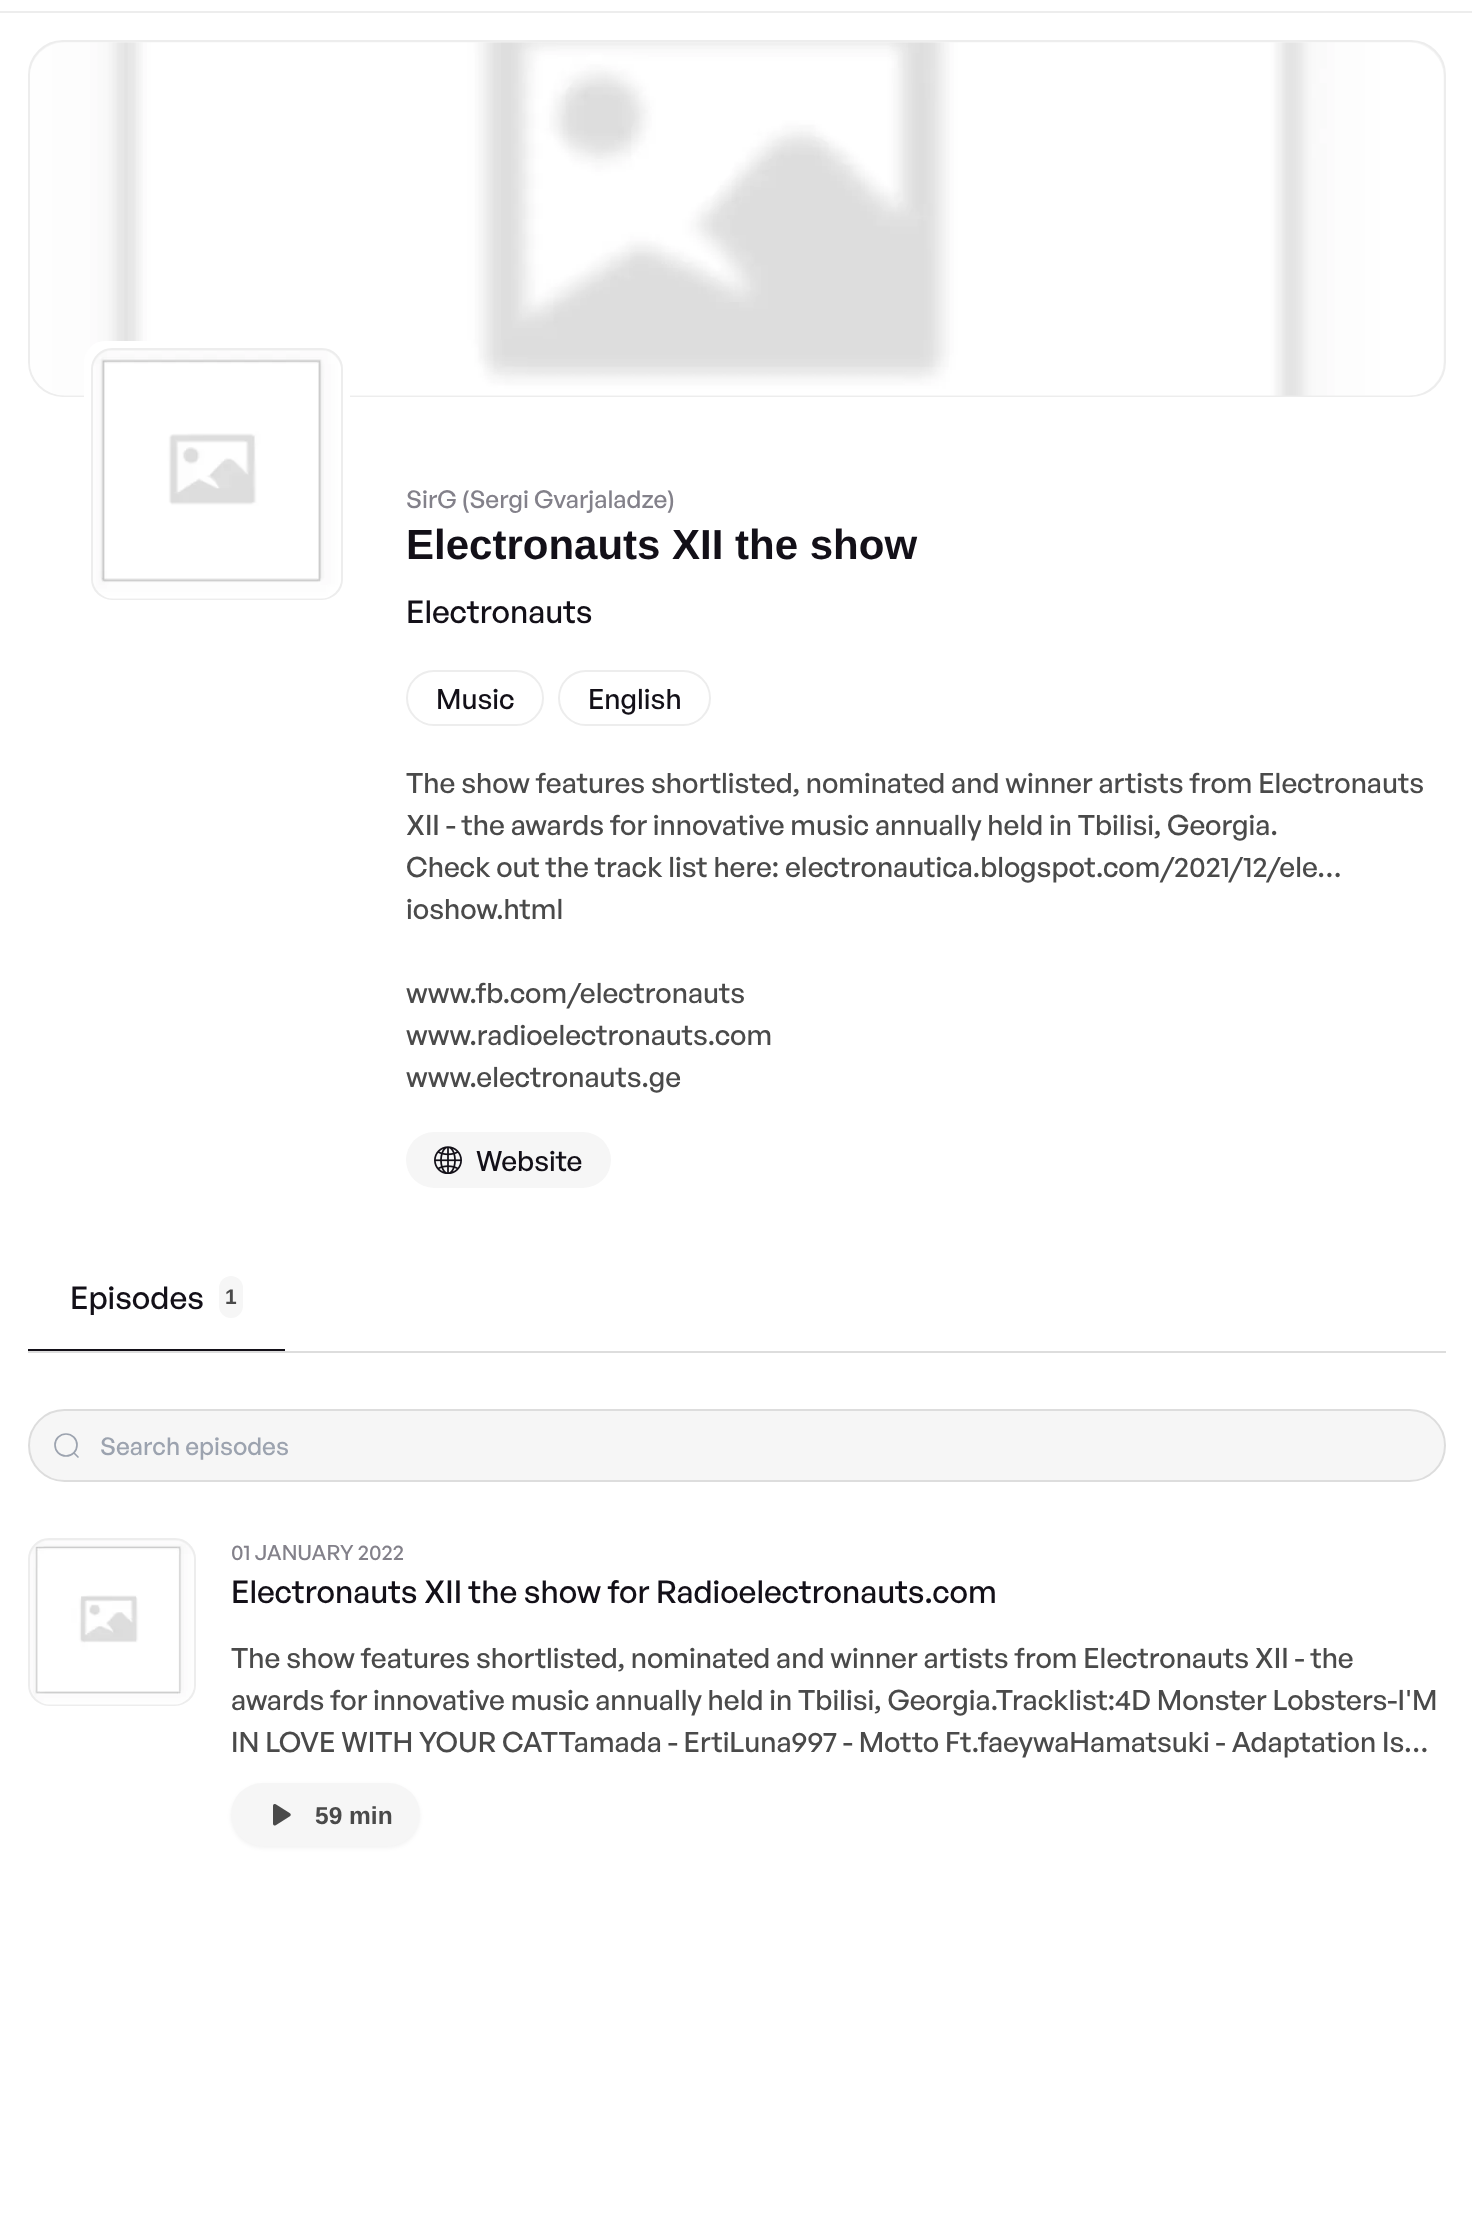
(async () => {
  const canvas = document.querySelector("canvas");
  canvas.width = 1472;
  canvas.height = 2214;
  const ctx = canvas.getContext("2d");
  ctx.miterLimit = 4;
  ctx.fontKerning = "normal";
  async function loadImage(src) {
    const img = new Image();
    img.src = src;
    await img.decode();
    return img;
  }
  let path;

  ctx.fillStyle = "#ffffff";
  ctx.fillRect(0, 0, 1472, 2214);
  ctx.fillStyle = "#ededed";
  ctx.fillRect(0, 11, 1472, 2);
  ctx.fillStyle = "#f6f6f6";
  ctx.beginPath();
  ctx.roundRect(29, 41, 1416, 355, 34);
  ctx.fill();
  ctx.strokeStyle = "#ededed";
  ctx.lineWidth = 2;
  ctx.stroke();
  ctx.drawImage(await loadImage("img/1.png"), 30, 42, 1414, 354);
  ctx.fillStyle = "#ffffff";
  ctx.beginPath();
  ctx.roundRect(84, 341, 266, 266, 21);
  ctx.fill();
  ctx.fillStyle = "#f6f6f6";
  ctx.beginPath();
  ctx.roundRect(92, 349, 250, 250, 20);
  ctx.fill();
  ctx.stroke();
  ctx.drawImage(await loadImage("img/2.png"), 93, 351, 248, 248);
  ctx.beginPath();
  ctx.roundRect(407, 671, 136, 54, 27);
  ctx.stroke();
  ctx.beginPath();
  ctx.roundRect(559, 671, 151, 54, 27);
  ctx.stroke();
  ctx.beginPath();
  ctx.roundRect(406, 1132, 205, 56, 28);
  ctx.fill();
  ctx.drawImage(await loadImage("img/3.png"), 434, 1146, 28, 28);
  ctx.fillStyle = "#dddddd";
  ctx.fillRect(28, 1351, 1418, 2);
  ctx.fillStyle = "#131018";
  ctx.fillRect(28, 1349, 257, 2);
  ctx.fillStyle = "#f6f6f6";
  ctx.beginPath();
  ctx.roundRect(219, 1276, 24, 42, 12);
  ctx.fill();
  ctx.beginPath();
  ctx.roundRect(29, 1410, 1416, 71, 35.5);
  ctx.fill();
  ctx.strokeStyle = "#dddddd";
  ctx.stroke();
  ctx.beginPath();
  ctx.arc(66, 1445, 11, 0, Math.PI * 2);
  ctx.strokeStyle = "#9ca3af";
  ctx.lineWidth = 1.7;
  ctx.stroke();
  path = new Path2D("M74 1453L78 1457");
  ctx.lineCap = "round";
  ctx.stroke(path);
  ctx.beginPath();
  ctx.roundRect(29, 1539, 166, 166, 20);
  ctx.fill();
  ctx.strokeStyle = "#ededed";
  ctx.lineWidth = 2;
  ctx.stroke();
  ctx.drawImage(await loadImage("img/4.png"), 30, 1541, 164, 164);
  ctx.fillStyle = "rgba(0, 0, 0, 0.05)";
  ctx.filter = "blur(2px)";
  ctx.beginPath();
  ctx.roundRect(231, 1785, 189, 63, 31.5);
  ctx.fill();
  ctx.filter = "none";
  ctx.fillStyle = "#f6f6f6";
  ctx.beginPath();
  ctx.roundRect(231, 1783, 189, 63, 31.5);
  ctx.fill();
  ctx.drawImage(await loadImage("img/5.png"), 273, 1804, 18, 22);
  ctx.font = "500 24.5px General Sans";
  ctx.fillStyle = "#83818a";
  ctx.fillText("SirG (Sergi Gvarjaladze)", 406, 508);
  ctx.font = "bold 42px Liberation Sans";
  ctx.fillStyle = "#131018";
  ctx.fillText("Electronauts XII the show", 406, 559);
  ctx.font = "500 31.5px General Sans";
  ctx.fillText("Electronauts", 406, 623);
  ctx.font = "500 28px General Sans";
  ctx.fillText("Music", 436, 709);
  ctx.fillText("English", 588, 709);
  ctx.fillStyle = "#4a4a4a";
  for (const [text, x, y] of [
    ["The show features shortlisted, nominated and winner artists from Electronauts", 406, 793],
    ["XII - the awards for innovative music annually held in Tbilisi, Georgia.", 406, 835],
    ["Check out the track list here: electronautica.blogspot.com/2021/12/ele…", 406, 877],
    ["ioshow.html", 406, 919],
    ["www.fb.com/electronauts", 406, 1003],
    ["www.radioelectronauts.com", 406, 1045],
    ["www.electronauts.ge", 406, 1087],
  ]) {
    ctx.fillText(text, x, y);
  }
  ctx.fillStyle = "#131018";
  ctx.fillText("Website", 476, 1171);
  ctx.font = "500 31.5px General Sans";
  ctx.fillText("Episodes", 70, 1309);
  ctx.font = "bold 21px Liberation Sans";
  ctx.fillStyle = "#4a4a4a";
  ctx.fillText("1", 225, 1304);
  ctx.font = "500 24.5px General Sans";
  ctx.fillStyle = "#9ca3af";
  ctx.fillText("Search episodes", 100, 1455);
  ctx.font = "500 21px General Sans";
  ctx.fillStyle = "#83818a";
  ctx.fillText("01 JANUARY 2022", 231, 1560);
  ctx.font = "500 31.5px General Sans";
  ctx.fillStyle = "#131018";
  ctx.fillText("Electronauts XII the show for Radioelectronauts.com", 231, 1603);
  ctx.font = "500 28px General Sans";
  ctx.fillStyle = "#4a4a4a";
  for (const [text, x, y] of [
    ["The show features shortlisted, nominated and winner artists from Electronauts XII - the", 231, 1668],
    ["awards for innovative music annually held in Tbilisi, Georgia.Tracklist:4D Monster Lobsters-I'M", 231, 1710],
    ["IN LOVE WITH YOUR CATTamada - ErtiLuna997 - Motto Ft.faeywaHamatsuki - Adaptation Is…", 231, 1752],
  ]) {
    ctx.fillText(text, x, y);
  }
  ctx.font = "bold 24.5px Liberation Sans";
  ctx.fillText("59 min", 315, 1824);
})();
